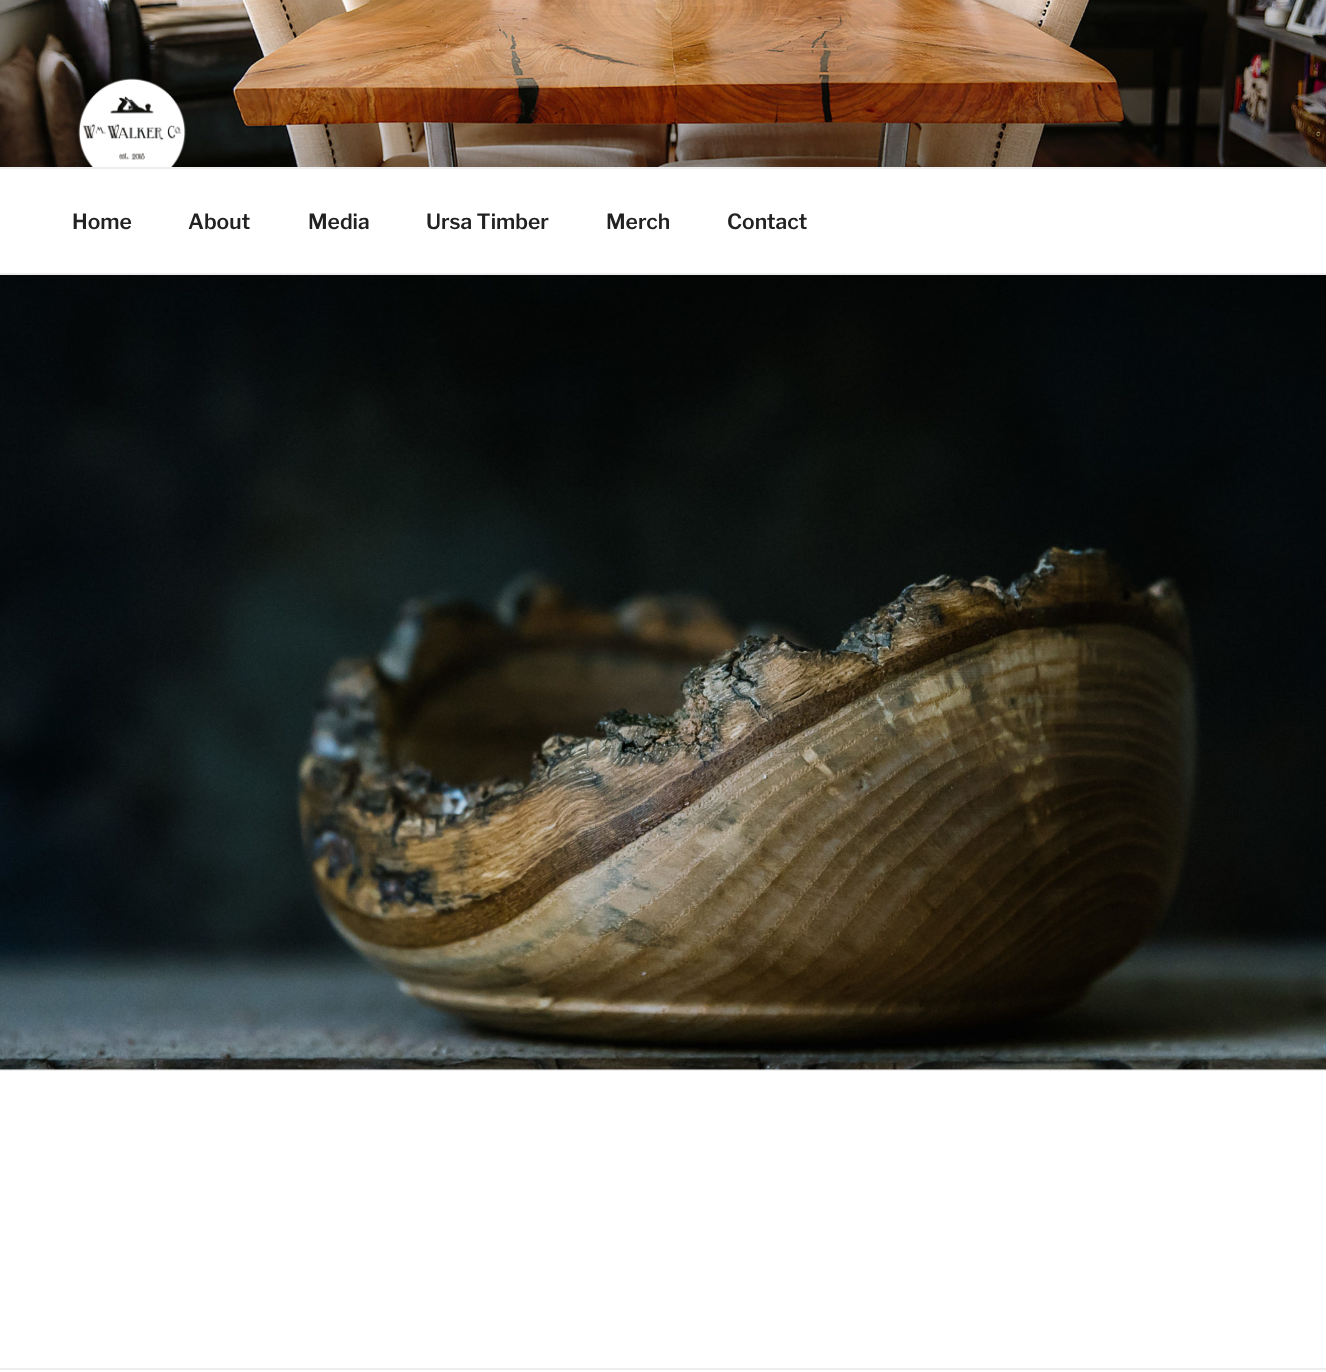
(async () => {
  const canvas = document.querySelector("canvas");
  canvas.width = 1326;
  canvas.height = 1372;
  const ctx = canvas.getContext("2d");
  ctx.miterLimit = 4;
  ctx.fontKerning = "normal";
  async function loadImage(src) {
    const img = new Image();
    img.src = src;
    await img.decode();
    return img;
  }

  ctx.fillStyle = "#fafafa";
  ctx.fillRect(0, 0, 1326, 1372);
  ctx.drawImage(await loadImage("img/1.png"), 0, 0, 1326, 167);
  ctx.drawImage(await loadImage("img/2.png"), 78, 78, 108, 89);
  for (const [x, y, w, h, color] of [
    [0, 169, 1326, 104, "#ffffff"],
    [0, 167, 1326, 2, "#eeeeee"],
    [0, 273, 1326, 2, "#eeeeee"],
    [0, 1070, 1326, 1, "#eeeeee"],
  ]) {
    ctx.fillStyle = color;
    ctx.fillRect(x, y, w, h);
  }
  ctx.drawImage(await loadImage("img/3.png"), 0, 275, 1326, 795);
  ctx.fillStyle = "#ffffff";
  ctx.fillRect(0, 1071, 1326, 301);
  ctx.fillStyle = "#eeeeee";
  ctx.fillRect(0, 1368, 1326, 2);
  ctx.font = "600 21px Libre Franklin";
  ctx.fillStyle = "#222222";
  for (const [text, x, y] of [
    ["Home", 72, 229],
    ["About", 188, 229],
    ["Media", 308, 229],
    ["Ursa Timber", 426, 229],
    ["Merch", 606, 229],
    ["Contact", 727, 229],
  ]) {
    ctx.fillText(text, x, y);
  }
})();
